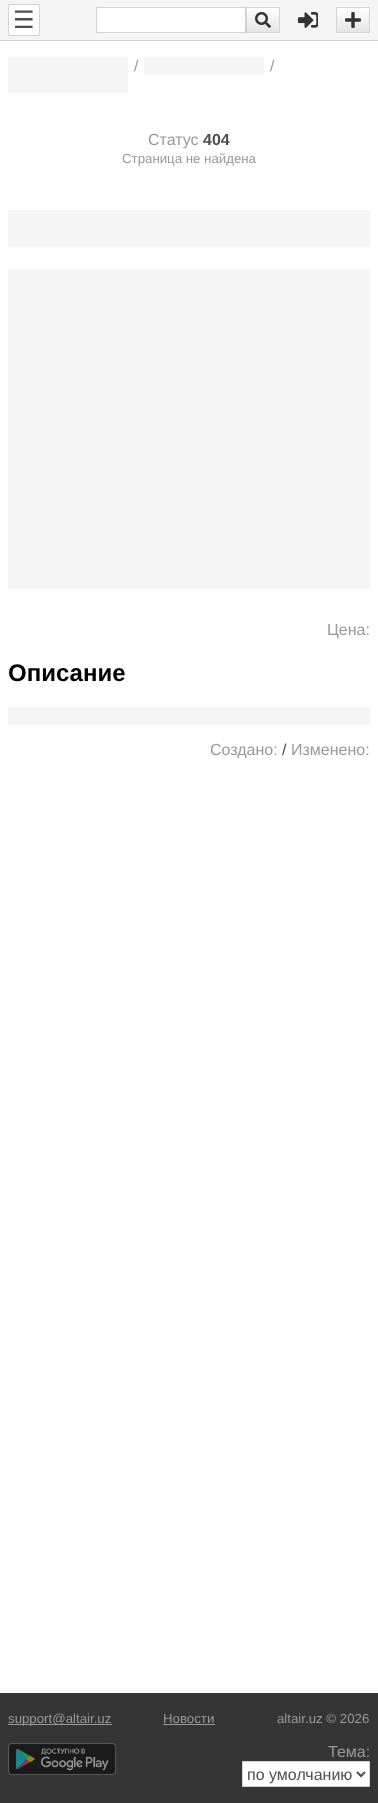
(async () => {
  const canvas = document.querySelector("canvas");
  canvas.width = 378;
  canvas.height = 1803;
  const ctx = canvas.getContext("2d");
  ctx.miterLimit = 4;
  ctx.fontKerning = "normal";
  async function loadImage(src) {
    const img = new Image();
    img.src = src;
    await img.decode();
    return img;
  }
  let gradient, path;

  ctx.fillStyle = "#ffffff";
  ctx.fillRect(0, 0, 378, 1803);
  ctx.fillStyle = "#f5f5f5";
  ctx.fillRect(0, 0, 378, 40);
  ctx.fillStyle = "#d3d3d3";
  ctx.fillRect(0, 40, 378, 1);
  ctx.fillStyle = "#ffffff";
  ctx.beginPath();
  ctx.roundRect(8.5, 4.5, 31, 31, 1.5);
  ctx.fill();
  ctx.strokeStyle = "#d3d3d3";
  ctx.stroke();
  ctx.beginPath();
  ctx.rect(96.5, 7.5, 149, 25);
  ctx.fill();
  ctx.stroke();
  gradient = ctx.createLinearGradient(263, 8, 263, 32);
  gradient.addColorStop(0, "#ffffff");
  gradient.addColorStop(1, "#e5e5e5");
  ctx.fillStyle = gradient;
  ctx.fillRect(247, 8, 32, 24);
  ctx.strokeRect(246.5, 7.5, 33, 25);
  ctx.drawImage(await loadImage("img/1.png"), 255, 12, 16, 16);
  ctx.drawImage(await loadImage("img/2.png"), 298, 12, 20, 16);
  gradient = ctx.createLinearGradient(353, 8, 353, 32);
  gradient.addColorStop(0, "#ffffff");
  gradient.addColorStop(1, "#e5e5e5");
  ctx.fillStyle = gradient;
  ctx.fillRect(337, 8, 32, 24);
  ctx.strokeRect(336.5, 7.5, 33, 25);
  ctx.drawImage(await loadImage("img/3.png"), 345, 12, 16, 16);
  for (const [x, y, w, h, color] of [
    [8, 57, 120, 36, "#f5f5f5"],
    [144, 57, 120, 18, "#f5f5f5"],
    [8, 210, 362, 37, "#f5f5f5"],
    [8, 269, 362, 320, "#f5f5f5"],
    [8, 707, 362, 18, "#f5f5f5"],
    [0, 1693, 378, 110, "#353535"],
    [8, 1724, 104, 1, "#999999"],
    [163, 1724, 52, 1, "#999999"],
  ]) {
    ctx.fillStyle = color;
    ctx.fillRect(x, y, w, h);
  }
  ctx.drawImage(await loadImage("img/4.png"), 8, 1743, 108, 32);
  ctx.fillStyle = "#ffffff";
  ctx.beginPath();
  ctx.rect(242.5, 1761.5, 127, 25);
  ctx.fill();
  ctx.stroke();
  path = new Path2D("M357 1772L361 1776L365 1772");
  ctx.strokeStyle = "#4f4f4f";
  ctx.lineWidth = 2;
  ctx.stroke(path);
  ctx.font = "24px DejaVu Sans";
  ctx.fillStyle = "#4f4f4f";
  ctx.fillText("☰", 13, 28);
  ctx.font = "16px Liberation Sans";
  ctx.fillStyle = "#999999";
  for (const [text, x, y] of [
    ["/", 134, 71],
    ["/", 270, 71],
    ["Статус", 148, 145],
  ]) {
    ctx.fillText(text, x, y);
  }
  ctx.font = "bold 16px Liberation Sans";
  ctx.fillStyle = "#4f4f4f";
  ctx.fillText("404", 203, 145);
  ctx.font = "13.25px Liberation Sans";
  ctx.fillStyle = "#999999";
  ctx.fillText("Страница не найдена", 122, 163);
  ctx.font = "16px Liberation Sans";
  ctx.fillText("Цена:", 327, 635);
  ctx.font = "bold 24px Liberation Sans";
  ctx.fillStyle = "#000000";
  ctx.fillText("Описание", 8, 681);
  ctx.font = "16px Liberation Sans";
  ctx.fillStyle = "#999999";
  ctx.fillText("Создано:", 210, 755);
  ctx.fillStyle = "#4f4f4f";
  ctx.fillText("/", 282, 755);
  ctx.fillStyle = "#999999";
  ctx.fillText("Изменено:", 291, 755);
  ctx.font = "13.25px Liberation Sans";
  for (const [text, x, y] of [
    ["support@altair.uz", 8, 1723],
    ["Новости", 163, 1723],
    ["altair.uz © 2026", 277, 1723],
  ]) {
    ctx.fillText(text, x, y);
  }
  ctx.font = "16px Liberation Sans";
  ctx.fillText("Тема:", 328, 1757);
  ctx.fillStyle = "#4f4f4f";
  ctx.fillText("по умолчанию", 247, 1780);
})();
